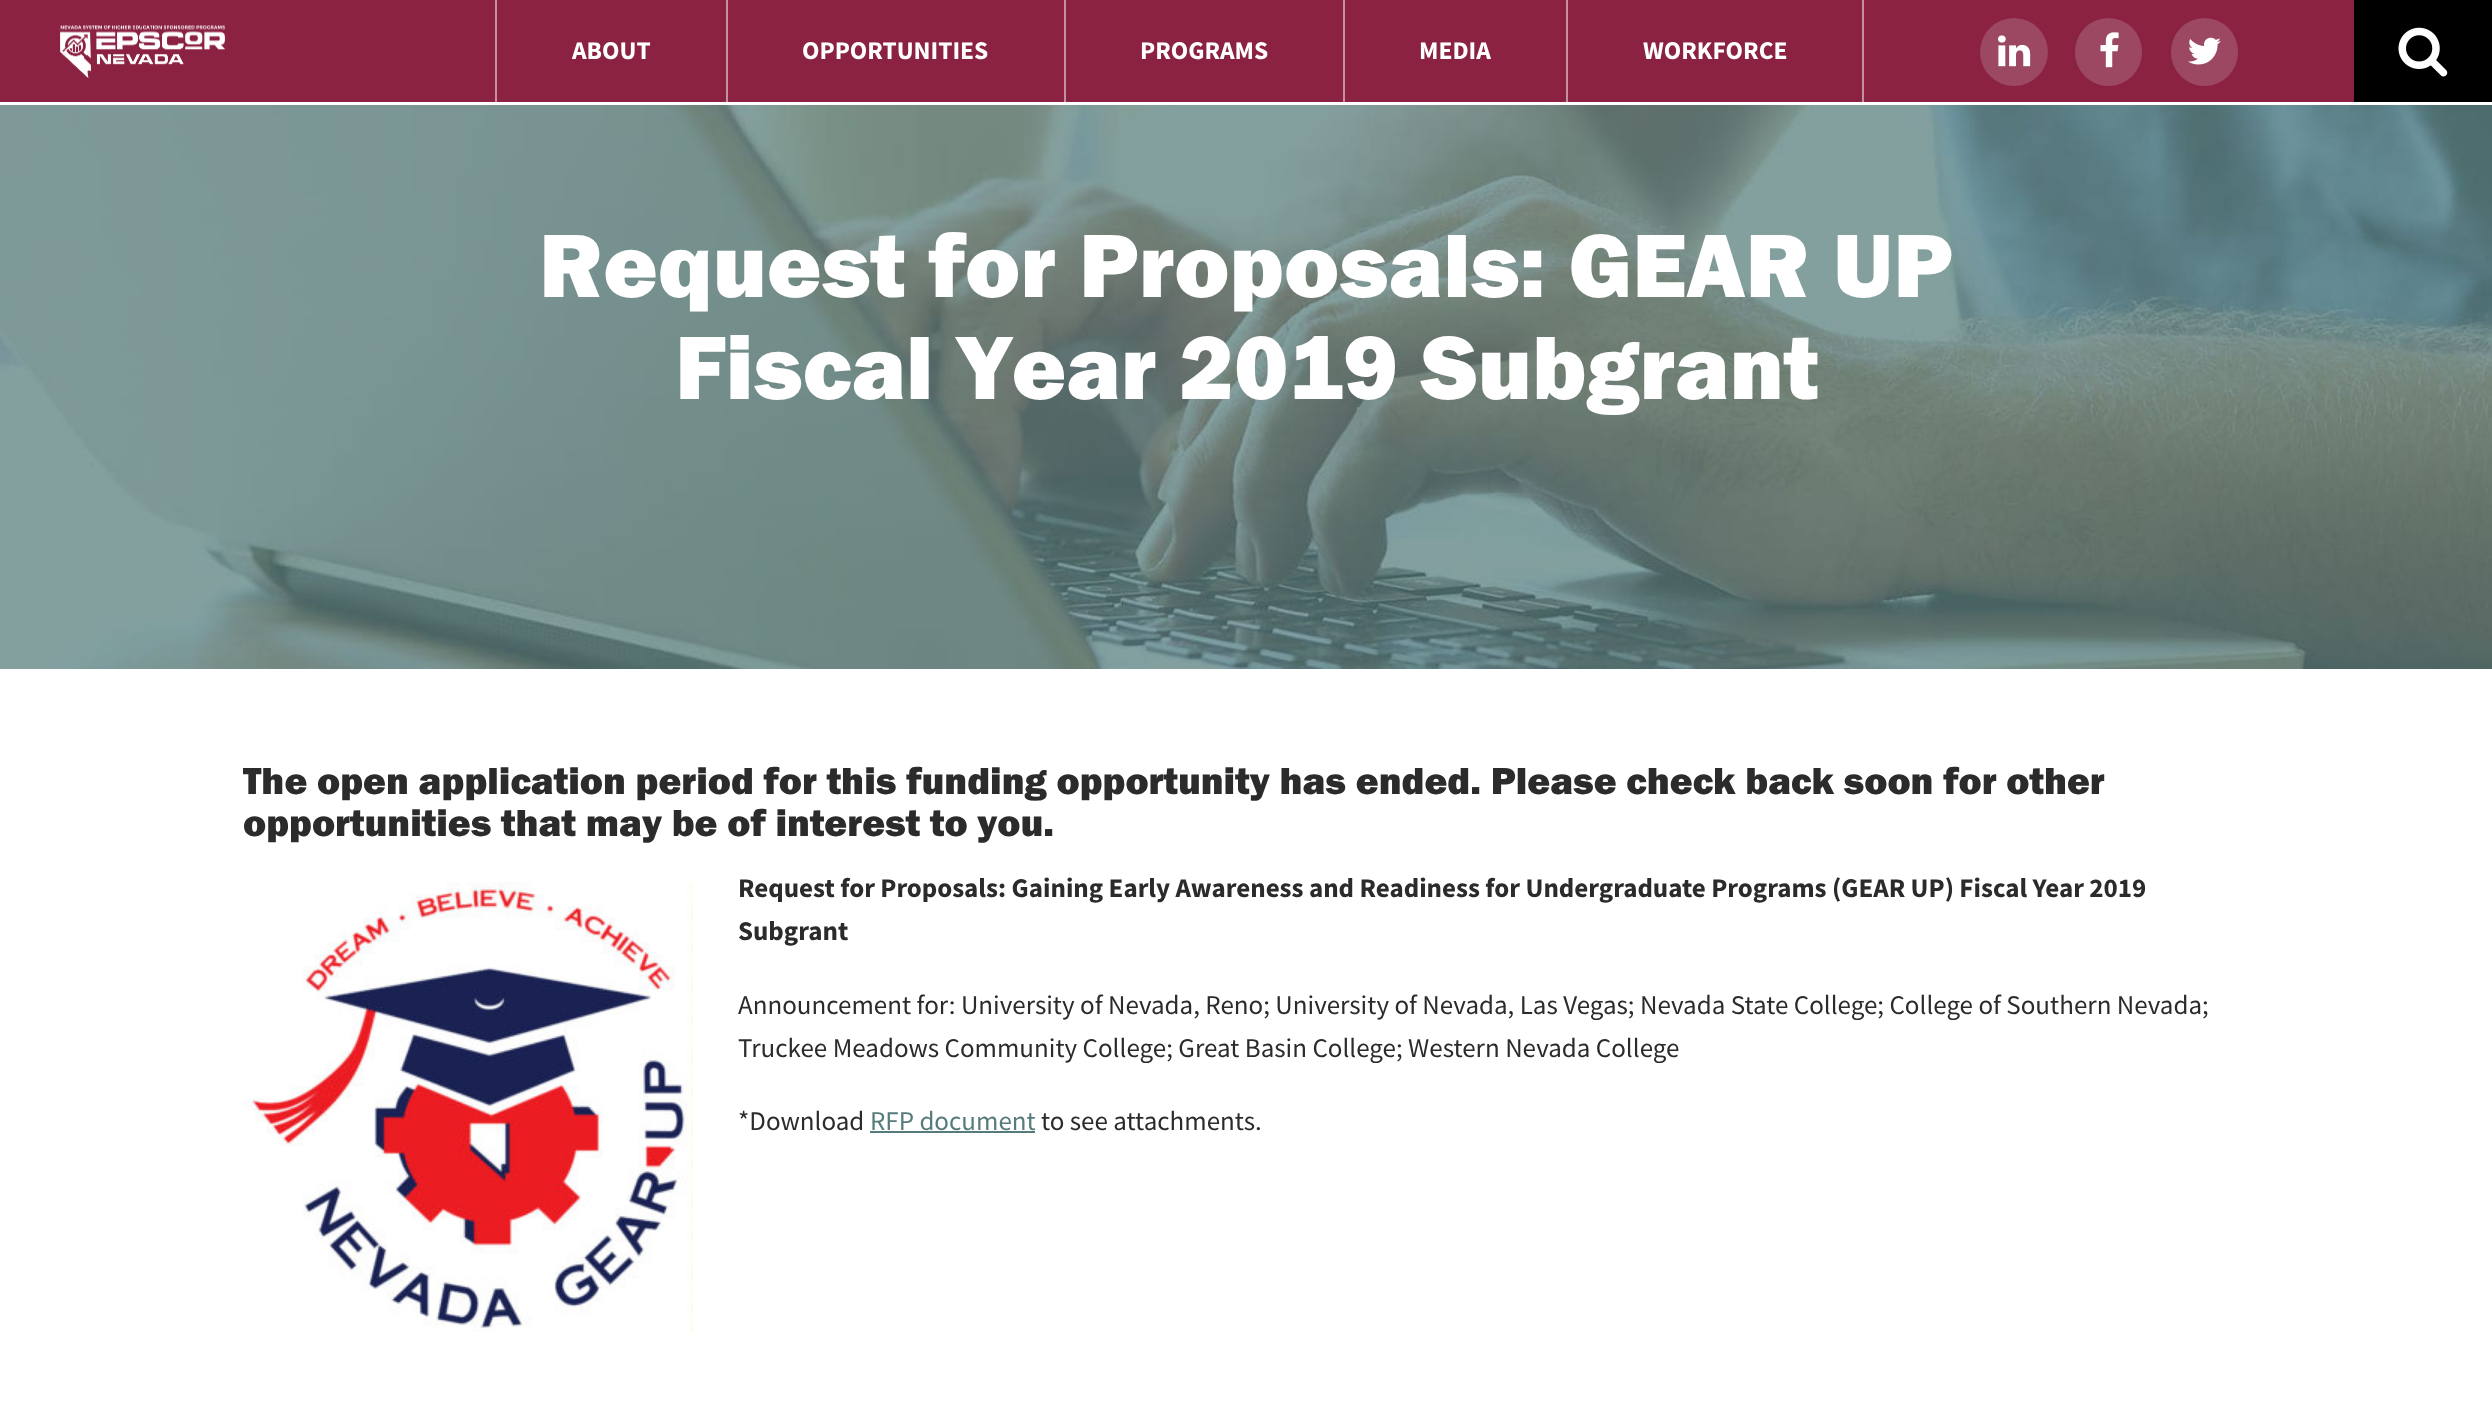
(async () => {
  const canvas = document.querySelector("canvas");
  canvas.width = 2492;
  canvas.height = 1415;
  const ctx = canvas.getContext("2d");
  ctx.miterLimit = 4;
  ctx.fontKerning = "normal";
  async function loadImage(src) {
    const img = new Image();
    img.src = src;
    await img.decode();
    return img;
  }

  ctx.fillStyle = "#ffffff";
  ctx.fillRect(0, 0, 2492, 1415);
  ctx.fillStyle = "#8b2242";
  ctx.fillRect(0, 0, 2354, 102);
  ctx.drawImage(await loadImage("img/1.png"), 60, 25, 165, 53);
  for (const [x, y, w, h, color] of [
    [495, 0, 2, 102, "#c591a1"],
    [726, 0, 2, 102, "#c591a1"],
    [1064, 0, 2, 102, "#c591a1"],
    [1343, 0, 2, 102, "#c591a1"],
    [1862, 0, 2, 102, "#c591a1"],
    [1566, 0, 2, 102, "#c591a1"],
  ]) {
    ctx.fillStyle = color;
    ctx.fillRect(x, y, w, h);
  }
  ctx.fillStyle = "#9c4862";
  ctx.beginPath();
  ctx.arc(2014, 52, 34, 0, Math.PI * 2);
  ctx.fill();
  ctx.drawImage(await loadImage("img/2.png"), 1998, 35, 33, 32);
  ctx.beginPath();
  ctx.roundRect(2075, 18, 67, 68, 33.5);
  ctx.fill();
  ctx.drawImage(await loadImage("img/3.png"), 2100, 32, 19, 36);
  ctx.beginPath();
  ctx.roundRect(2171, 18, 67, 68, 33.5);
  ctx.fill();
  ctx.drawImage(await loadImage("img/4.png"), 2188, 37, 33, 28);
  ctx.fillStyle = "#000000";
  ctx.fillRect(2354, 0, 138, 102);
  ctx.drawImage(await loadImage("img/5.png"), 2398, 27, 50, 50);
  ctx.drawImage(await loadImage("img/6.png"), 0, 105, 2492, 564);
  ctx.drawImage(await loadImage("img/7.png"), 243, 882, 450, 450);
  ctx.fillStyle = "#567b7b";
  ctx.fillRect(870, 1131, 165, 2);
  ctx.font = "bold 25.5px Source Sans Pro";
  ctx.fillStyle = "#ffffff";
  for (const [text, x, y] of [
    ["ABOUT", 572, 59],
    ["OPPORTUNITIES", 802, 59],
    ["PROGRAMS", 1140, 59],
    ["MEDIA", 1419, 59],
    ["WORKFORCE", 1643, 59],
  ]) {
    ctx.fillText(text, x, y);
  }
  ctx.font = "900 93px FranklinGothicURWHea";
  ctx.fillText("Request for Proposals: GEAR UP", 539, 297);
  ctx.fillText("Fiscal Year 2019 Subgrant", 675, 399);
  ctx.font = "900 39px FranklinGothicURWHea";
  ctx.fillStyle = "#2b2b2b";
  ctx.fillText("The open application period for this funding opportunity has ended. Please check back soon for other", 243, 794);
  ctx.fillText("opportunities that may be of interest to you.", 243, 836);
  ctx.font = "bold 27px Source Sans Pro";
  ctx.fillText("Request for Proposals: Gaining Early Awareness and Readiness for Undergraduate Programs (GEAR UP) Fiscal Year 2019", 738, 897);
  ctx.fillText("Subgrant", 738, 940);
  ctx.font = "27px Source Sans Pro";
  for (const [text, x, y] of [
    ["Announcement for: University of Nevada, Reno; University of Nevada, Las Vegas; Nevada State College; College of Southern Nevada;", 738, 1014],
    ["Truckee Meadows Community College; Great Basin College; Western Nevada College", 738, 1057],
    ["*Download", 738, 1130],
  ]) {
    ctx.fillText(text, x, y);
  }
  ctx.fillStyle = "#567b7b";
  ctx.fillText("RFP document", 870, 1130);
  ctx.fillStyle = "#2b2b2b";
  ctx.fillText("to see attachments.", 1041, 1130);
})();
